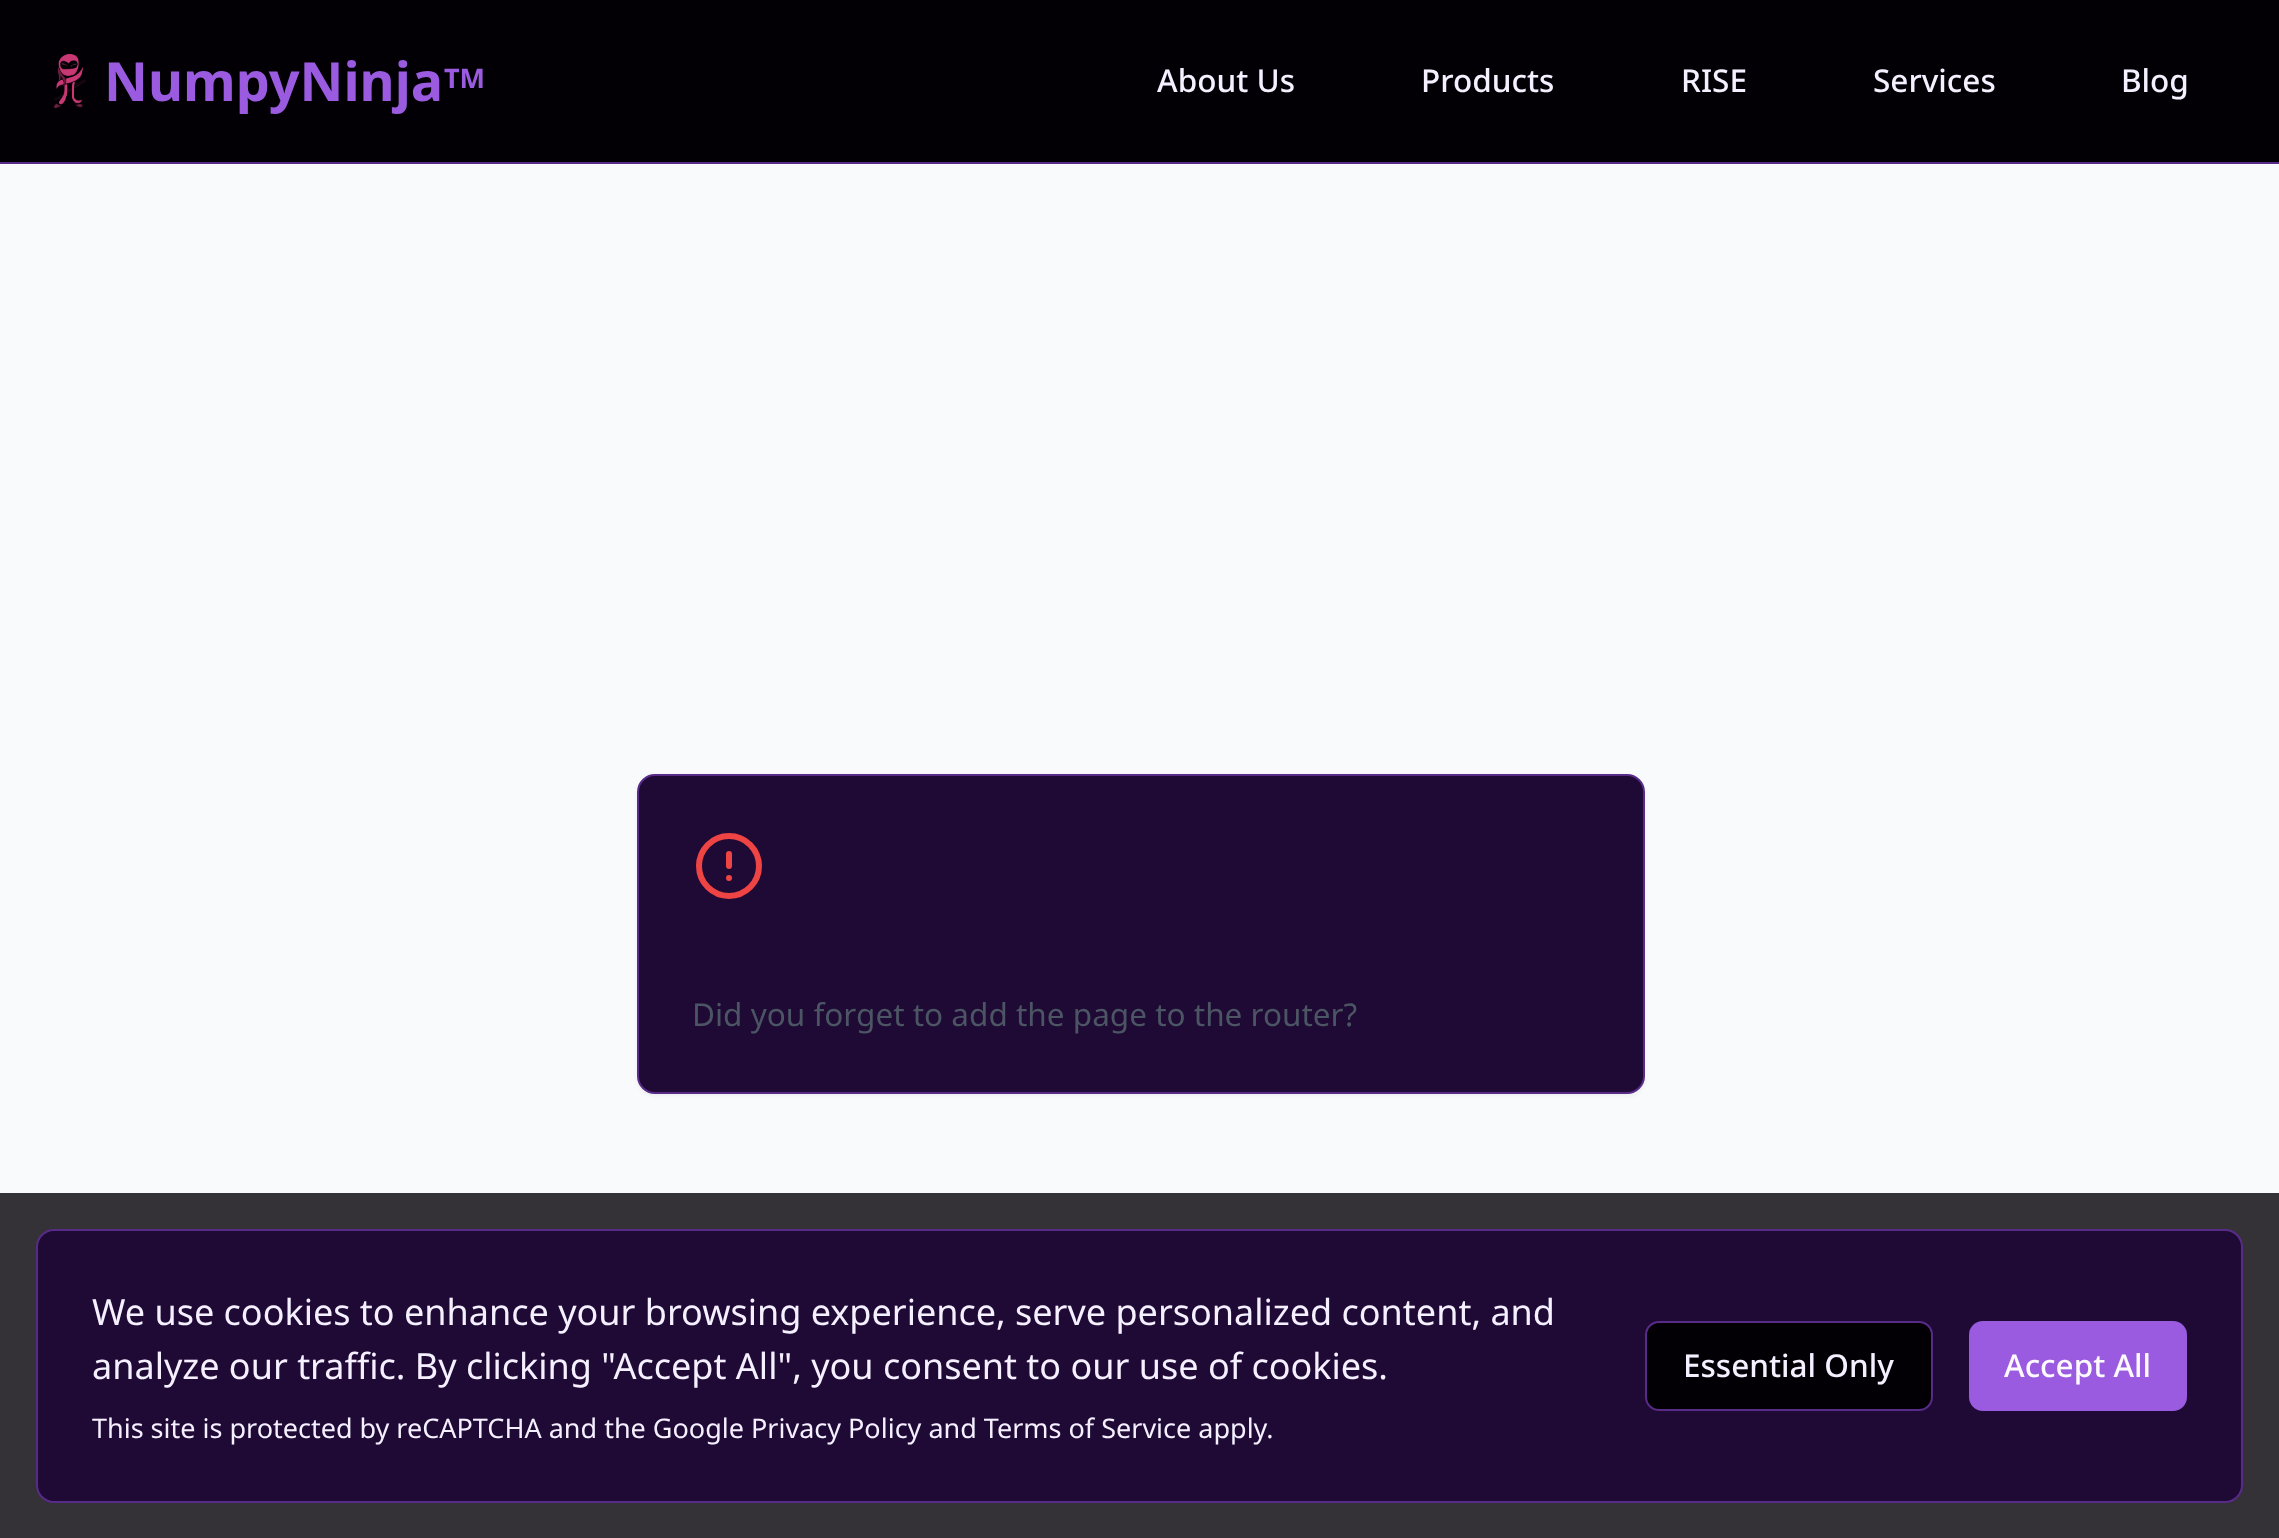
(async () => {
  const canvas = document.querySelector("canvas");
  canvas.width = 2279;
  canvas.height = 1538;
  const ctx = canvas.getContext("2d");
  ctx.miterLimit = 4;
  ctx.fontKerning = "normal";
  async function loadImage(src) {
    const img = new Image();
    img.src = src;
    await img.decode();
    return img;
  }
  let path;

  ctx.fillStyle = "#020005";
  ctx.fillRect(0, 0, 2279, 1538);
  ctx.fillStyle = "#582b88";
  ctx.fillRect(0, 162, 2279, 2);
  ctx.drawImage(await loadImage("img/1.png"), 54, 54, 32, 54);
  ctx.fillStyle = "#f9fafb";
  ctx.fillRect(0, 164, 2279, 1029);
  ctx.fillStyle = "rgba(0, 0, 0, 0.05)";
  ctx.filter = "blur(2px)";
  ctx.beginPath();
  ctx.roundRect(637, 776, 1008, 320, 18);
  ctx.fill();
  ctx.filter = "none";
  ctx.fillStyle = "#1f0935";
  ctx.beginPath();
  ctx.roundRect(638, 775, 1006, 318, 17);
  ctx.fill();
  ctx.strokeStyle = "#582b88";
  ctx.lineWidth = 2;
  ctx.stroke();
  ctx.beginPath();
  ctx.arc(729, 866, 30, 0, Math.PI * 2);
  ctx.strokeStyle = "#ef4444";
  ctx.lineWidth = 6;
  ctx.stroke();
  path = new Path2D("M729 854V866M729 878H729");
  ctx.lineCap = "round";
  ctx.lineJoin = "round";
  ctx.stroke(path);
  ctx.fillStyle = "#343236";
  ctx.fillRect(0, 1193, 2279, 345);
  ctx.fillStyle = "#1f0935";
  ctx.beginPath();
  ctx.roundRect(37, 1230, 2205, 272, 17);
  ctx.fill();
  ctx.strokeStyle = "#582b88";
  ctx.lineWidth = 2;
  ctx.lineJoin = "miter";
  ctx.stroke();
  ctx.fillStyle = "#020005";
  ctx.beginPath();
  ctx.roundRect(1646, 1322, 286, 88, 13);
  ctx.fill();
  ctx.stroke();
  ctx.fillStyle = "#9a5be1";
  ctx.beginPath();
  ctx.roundRect(1969, 1321, 218, 90, 14);
  ctx.fill();
  ctx.font = "bold 54px Noto Sans";
  ctx.fillText("NumpyNinja", 104, 101);
  ctx.font = "bold 27px Noto Sans";
  ctx.fillText("TM", 444, 88);
  ctx.font = "500 31.5px Noto Sans";
  ctx.fillStyle = "#f5f0ff";
  for (const [text, x, y] of [
    ["About Us", 1157, 92],
    ["Products", 1421, 92],
    ["RISE", 1681, 92],
    ["Services", 1873, 92],
    ["Blog", 2121, 92],
  ]) {
    ctx.fillText(text, x, y);
  }
  ctx.font = "31.5px Noto Sans";
  ctx.fillStyle = "#4b5563";
  ctx.fillText("Did you forget to add the page to the router?", 692, 1026);
  ctx.font = "36px Noto Sans";
  ctx.fillStyle = "#f5f0ff";
  ctx.fillText("We use cookies to enhance your browsing experience, serve personalized content, and", 92, 1325);
  ctx.fillText("analyze our traffic. By clicking \"Accept All\", you consent to our use of cookies.", 92, 1379);
  ctx.font = "27px Noto Sans";
  ctx.fillText("This site is protected by reCAPTCHA and the Google Privacy Policy and Terms of Service apply.", 92, 1438);
  ctx.font = "500 31.5px Noto Sans";
  ctx.fillText("Essential Only", 1683, 1377);
  ctx.fillStyle = "#fcfaff";
  ctx.fillText("Accept All", 2004, 1377);
})();
